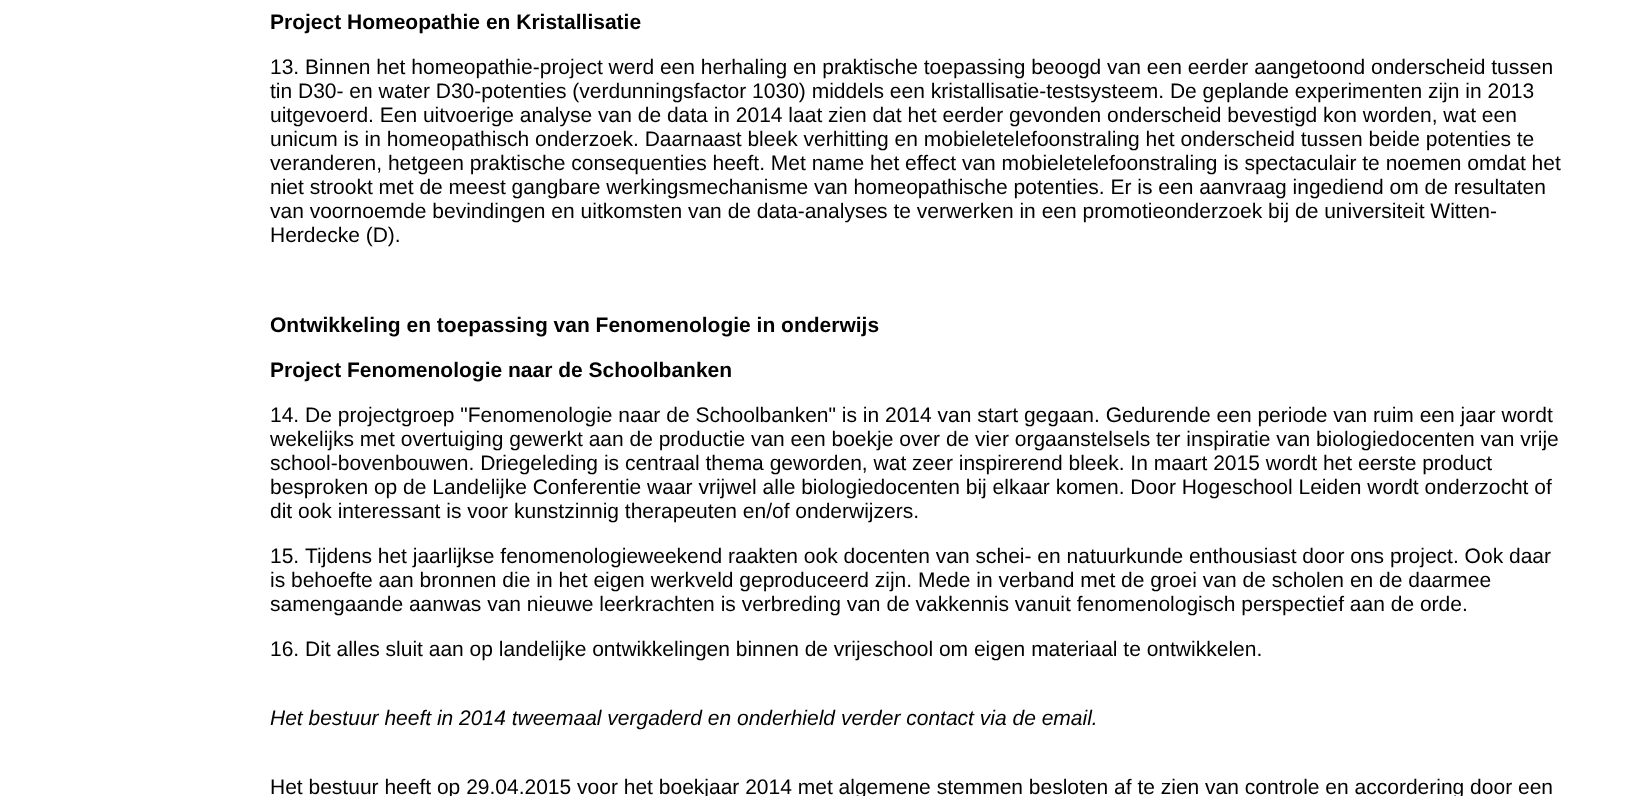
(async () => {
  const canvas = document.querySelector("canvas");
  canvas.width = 1628;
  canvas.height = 796;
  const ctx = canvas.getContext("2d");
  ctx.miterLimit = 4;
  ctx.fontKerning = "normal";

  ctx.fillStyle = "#ffffff";
  ctx.fillRect(0, 0, 1628, 796);
  ctx.font = "bold 21px Liberation Sans";
  ctx.fillStyle = "#000000";
  ctx.fillText("Project Homeopathie en Kristallisatie", 270, 29);
  ctx.font = "21px Liberation Sans";
  for (const [text, x, y] of [
    ["13. Binnen het homeopathie-project werd een herhaling en praktische toepassing beoogd van een eerder aangetoond onderscheid tussen", 270, 74],
    ["tin D30- en water D30-potenties (verdunningsfactor 1030) middels een kristallisatie-testsysteem. De geplande experimenten zijn in 2013", 270, 98],
    ["uitgevoerd. Een uitvoerige analyse van de data in 2014 laat zien dat het eerder gevonden onderscheid bevestigd kon worden, wat een", 270, 122],
    ["unicum is in homeopathisch onderzoek. Daarnaast bleek verhitting en mobieletelefoonstraling het onderscheid tussen beide potenties te", 270, 146],
    ["veranderen, hetgeen praktische consequenties heeft. Met name het effect van mobieletelefoonstraling is spectaculair te noemen omdat het", 270, 170],
    ["niet strookt met de meest gangbare werkingsmechanisme van homeopathische potenties. Er is een aanvraag ingediend om de resultaten", 270, 194],
    ["van voornoemde bevindingen en uitkomsten van de data-analyses te verwerken in een promotieonderzoek bij de universiteit Witten-", 270, 218],
    ["Herdecke (D).", 270, 242],
  ]) {
    ctx.fillText(text, x, y);
  }
  ctx.font = "bold 21px Liberation Sans";
  ctx.fillText("Ontwikkeling en toepassing van Fenomenologie in onderwijs", 270, 332);
  ctx.fillText("Project Fenomenologie naar de Schoolbanken", 270, 377);
  ctx.font = "21px Liberation Sans";
  for (const [text, x, y] of [
    ["14. De projectgroep \"Fenomenologie naar de Schoolbanken\" is in 2014 van start gegaan. Gedurende een periode van ruim een jaar wordt", 270, 422],
    ["wekelijks met overtuiging gewerkt aan de productie van een boekje over de vier orgaanstelsels ter inspiratie van biologiedocenten van vrije", 270, 446],
    ["school-bovenbouwen. Driegeleding is centraal thema geworden, wat zeer inspirerend bleek. In maart 2015 wordt het eerste product", 270, 470],
    ["besproken op de Landelijke Conferentie waar vrijwel alle biologiedocenten bij elkaar komen. Door Hogeschool Leiden wordt onderzocht of", 270, 494],
    ["dit ook interessant is voor kunstzinnig therapeuten en/of onderwijzers.", 270, 518],
    ["15.", 270, 563],
    ["Tijdens het jaarlijkse fenomenologieweekend raakten ook docenten van schei- en natuurkunde enthousiast door ons project. Ook daar", 305, 563],
    ["is behoefte aan bronnen die in het eigen werkveld geproduceerd zijn. Mede in verband met de groei van de scholen en de daarmee", 270, 587],
    ["samengaande aanwas van nieuwe leerkrachten is verbreding van de vakkennis vanuit fenomenologisch perspectief aan de orde.", 270, 611],
    ["16. Dit alles sluit aan op landelijke ontwikkelingen binnen de vrijeschool om eigen materiaal te ontwikkelen.", 270, 656],
  ]) {
    ctx.fillText(text, x, y);
  }
  ctx.font = "italic 21px Liberation Sans";
  ctx.fillText("Het bestuur heeft in 2014 tweemaal vergaderd en onderhield verder contact via de email.", 270, 725);
  ctx.font = "21px Liberation Sans";
  ctx.fillText("Het bestuur heeft op 29.04.2015 voor het boekjaar 2014 met algemene stemmen besloten af te zien van controle en accordering door een", 270, 794);
})();
